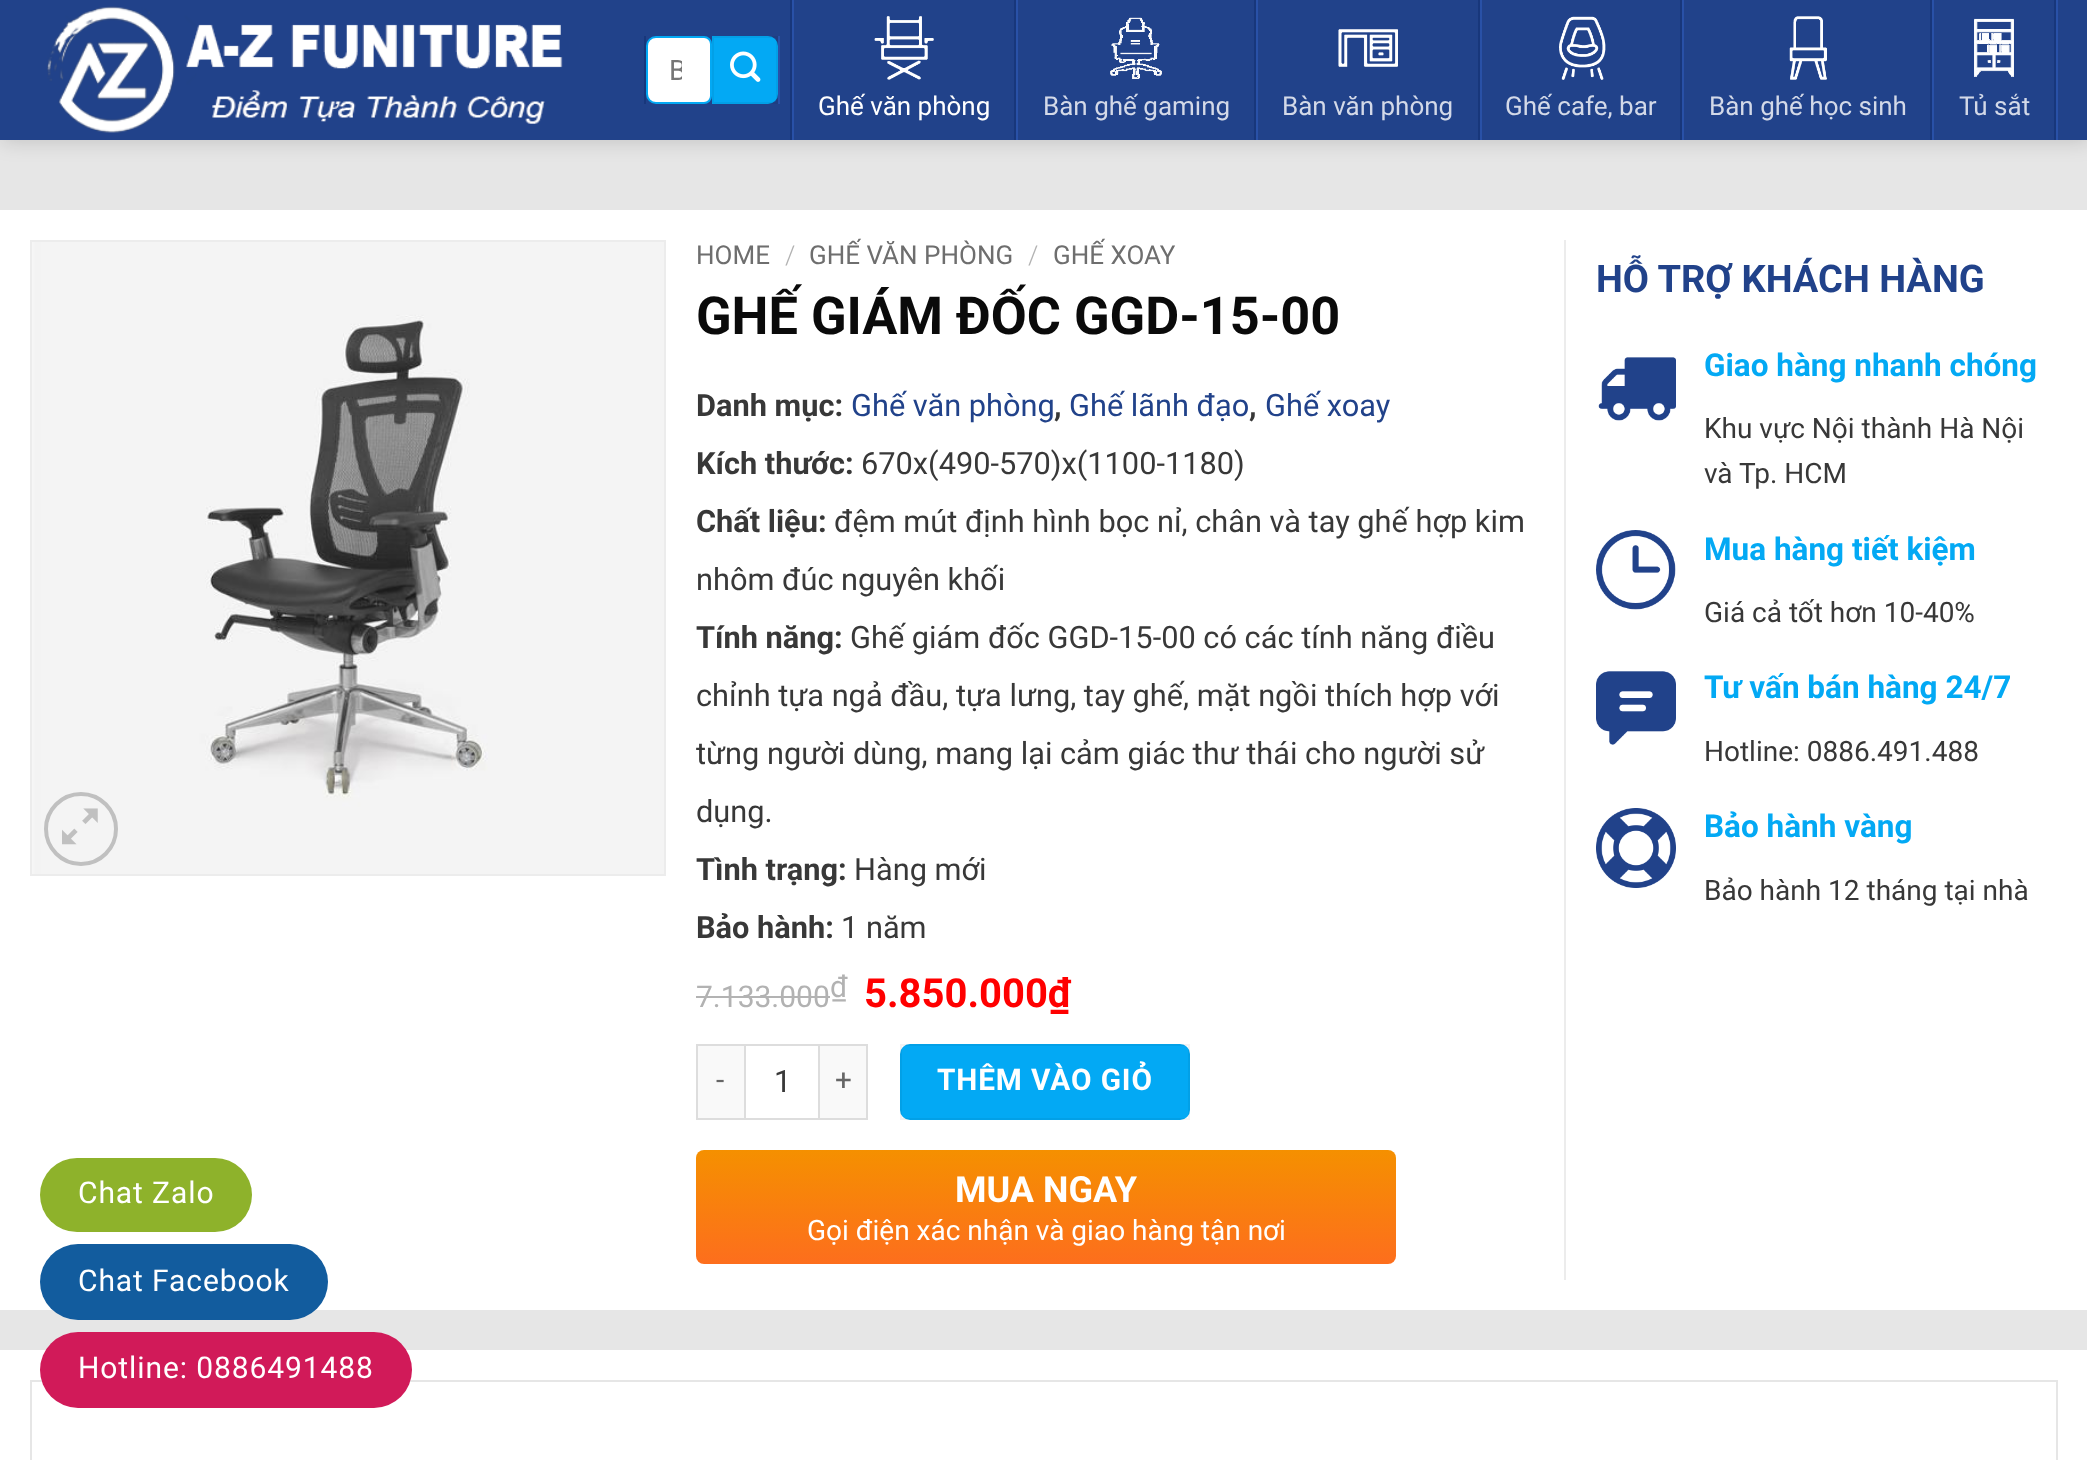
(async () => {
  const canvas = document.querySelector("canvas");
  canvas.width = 2087;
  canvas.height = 1460;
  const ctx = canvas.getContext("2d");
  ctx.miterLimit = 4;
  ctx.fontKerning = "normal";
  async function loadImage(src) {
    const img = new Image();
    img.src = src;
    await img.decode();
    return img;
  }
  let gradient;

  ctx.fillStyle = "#e6e6e6";
  ctx.fillRect(0, 0, 2087, 1460);
  ctx.fillStyle = "rgba(0, 0, 0, 0.15)";
  ctx.filter = "blur(10px)";
  ctx.beginPath();
  ctx.rect(2, 2, 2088, 140);
  ctx.fill();
  ctx.filter = "none";
  ctx.fillStyle = "#21428a";
  ctx.fillRect(0, 0, 2087, 140);
  ctx.drawImage(await loadImage("img/1.png"), 47, 6, 516, 127);
  ctx.fillStyle = "#2951a7";
  ctx.fillRect(778, 36, 2, 68);
  ctx.fillStyle = "#18377b";
  ctx.fillRect(644, 36, 2, 68);
  ctx.fillStyle = "#ffffff";
  ctx.beginPath();
  ctx.roundRect(647, 37, 64, 66, [9, 7, 7, 9]);
  ctx.fill();
  ctx.strokeStyle = "#03a9f4";
  ctx.lineWidth = 2;
  ctx.stroke();
  ctx.fillStyle = "#03a9f4";
  ctx.beginPath();
  ctx.roundRect(712, 36, 66, 68, [0, 10, 10, 0]);
  ctx.fill();
  ctx.strokeStyle = "rgba(0, 0, 0, 0.05)";
  ctx.strokeRect(713, 37, 64, 66);
  ctx.drawImage(await loadImage("img/2.png"), 730, 51, 31, 31);
  for (const [x, y, w, h, color] of [
    [790, 0, 2, 140, "#18377b"],
    [1014, 0, 2, 140, "#18377b"],
    [792, 0, 2, 140, "#2951a7"],
  ]) {
    ctx.fillStyle = color;
    ctx.fillRect(x, y, w, h);
  }
  ctx.drawImage(await loadImage("img/3.png"), 874, 16, 60, 64);
  ctx.fillStyle = "#18377b";
  ctx.fillRect(1254, 0, 2, 140);
  ctx.fillStyle = "#2951a7";
  ctx.fillRect(1016, 0, 2, 140);
  ctx.drawImage(await loadImage("img/4.png"), 1110, 17, 52, 62);
  ctx.fillStyle = "#18377b";
  ctx.fillRect(1478, 0, 2, 140);
  ctx.fillStyle = "#2951a7";
  ctx.fillRect(1256, 0, 2, 140);
  ctx.drawImage(await loadImage("img/5.png"), 1338, 29, 60, 38);
  ctx.fillStyle = "#18377b";
  ctx.fillRect(1680, 0, 2, 140);
  ctx.fillStyle = "#2951a7";
  ctx.fillRect(1480, 0, 2, 140);
  ctx.drawImage(await loadImage("img/6.png"), 1559, 16, 47, 64);
  ctx.fillStyle = "#18377b";
  ctx.fillRect(1930, 0, 2, 140);
  ctx.fillStyle = "#2951a7";
  ctx.fillRect(1682, 0, 2, 140);
  ctx.drawImage(await loadImage("img/7.png"), 1789, 16, 38, 64);
  for (const [x, y, w, h, color] of [
    [2056, 0, 2, 140, "#2951a7"],
    [2054, 0, 2, 140, "#18377b"],
    [1932, 0, 2, 140, "#2951a7"],
  ]) {
    ctx.fillStyle = color;
    ctx.fillRect(x, y, w, h);
  }
  ctx.drawImage(await loadImage("img/8.png"), 1974, 18, 40, 59);
  ctx.fillStyle = "#ffffff";
  ctx.fillRect(0, 210, 2087, 1100);
  ctx.strokeStyle = "#ececec";
  ctx.strokeRect(31, 241, 634, 634);
  ctx.drawImage(await loadImage("img/9.png"), 32, 242, 632, 632);
  ctx.beginPath();
  ctx.arc(81, 829, 35, 0, Math.PI * 2);
  ctx.strokeStyle = "#c0c0c0";
  ctx.lineWidth = 4;
  ctx.stroke();
  ctx.drawImage(await loadImage("img/10.png"), 62, 808, 36, 37);
  for (const [x, y, w, h, color] of [
    [1564, 240, 2, 1040, "#ececec"],
    [698, 1046, 46, 72, "#f9f9f9"],
    [696, 1044, 48, 2, "#dddddd"],
    [696, 1118, 48, 2, "#dddddd"],
    [696, 1044, 2, 76, "#dddddd"],
  ]) {
    ctx.fillStyle = color;
    ctx.fillRect(x, y, w, h);
  }
  ctx.strokeStyle = "#dddddd";
  ctx.lineWidth = 2;
  ctx.strokeRect(745, 1045, 74, 74);
  for (const [x, y, w, h, color] of [
    [820, 1046, 46, 72, "#f9f9f9"],
    [820, 1044, 48, 2, "#dddddd"],
    [866, 1044, 2, 76, "#dddddd"],
    [820, 1118, 48, 2, "#dddddd"],
  ]) {
    ctx.fillStyle = color;
    ctx.fillRect(x, y, w, h);
  }
  ctx.fillStyle = "#03a9f4";
  ctx.beginPath();
  ctx.roundRect(900, 1044, 290, 76, 10);
  ctx.fill();
  ctx.strokeStyle = "rgba(0, 0, 0, 0.05)";
  ctx.strokeRect(901, 1045, 288, 74);
  gradient = ctx.createLinearGradient(1046, 1150, 1046, 1264);
  gradient.addColorStop(0, "#f59000");
  gradient.addColorStop(1, "#fd6e1d");
  ctx.fillStyle = gradient;
  ctx.beginPath();
  ctx.roundRect(696, 1150, 700, 114, 8);
  ctx.fill();
  ctx.drawImage(await loadImage("img/11.png"), 1598, 357, 78, 64);
  ctx.drawImage(await loadImage("img/12.png"), 1596, 530, 80, 80);
  ctx.drawImage(await loadImage("img/13.png"), 1596, 671, 80, 74);
  ctx.drawImage(await loadImage("img/14.png"), 1596, 808, 80, 80);
  ctx.fillStyle = "#ffffff";
  ctx.fillRect(0, 1350, 2087, 110);
  ctx.strokeStyle = "#e6e6e6";
  ctx.strokeRect(31, 1381, 2026, 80);
  ctx.fillStyle = "#8eb22b";
  ctx.beginPath();
  ctx.roundRect(40, 1158, 212, 74, 37);
  ctx.fill();
  ctx.fillStyle = "#125c9e";
  ctx.beginPath();
  ctx.roundRect(40, 1244, 288, 76, 38);
  ctx.fill();
  ctx.fillStyle = "#d11a59";
  ctx.beginPath();
  ctx.roundRect(40, 1332, 372, 76, 38);
  ctx.fill();
  ctx.save();
  ctx.beginPath();
  ctx.rect(670, 54, 12, 32);
  ctx.clip();
  ctx.font = "28px Roboto";
  ctx.fillStyle = "#757575";
  ctx.fillText("B", 669, 80);
  ctx.restore();
  ctx.font = "26px Roboto";
  ctx.fillStyle = "#ffffff";
  ctx.fillText("Ghế văn phòng", 818, 115);
  ctx.fillStyle = "#d3d9e8";
  for (const [text, x, y] of [
    ["Bàn ghế gaming", 1043, 115],
    ["Bàn văn phòng", 1282, 115],
    ["Ghế cafe, bar", 1505, 115],
    ["Bàn ghế học sinh", 1709, 115],
    ["Tủ sắt", 1959, 115],
  ]) {
    ctx.fillText(text, x, y);
  }
  ctx.fillStyle = "#6e6e6e";
  ctx.fillText("HOME", 696, 264);
  ctx.font = "300 26px Roboto";
  ctx.fillStyle = "#b2b2b2";
  ctx.fillText("/", 785, 264);
  ctx.font = "26px Roboto";
  ctx.fillStyle = "#6e6e6e";
  ctx.fillText("GHẾ VĂN PHÒNG", 809, 264);
  ctx.font = "300 26px Roboto";
  ctx.fillStyle = "#b2b2b2";
  ctx.fillText("/", 1028, 264);
  ctx.font = "26px Roboto";
  ctx.fillStyle = "#6e6e6e";
  ctx.fillText("GHẾ XOAY", 1053, 264);
  ctx.font = "bold 52.25px Roboto";
  ctx.fillStyle = "#0a0a0a";
  ctx.fillText("GHẾ GIÁM ĐỐC GGD-15-00", 696, 334);
  ctx.font = "bold 30.75px Roboto";
  ctx.fillStyle = "#383838";
  ctx.fillText("Danh mục:", 696, 416);
  ctx.font = "30.75px Roboto";
  ctx.fillStyle = "#21428a";
  ctx.fillText("Ghế văn phòng", 851, 416);
  ctx.font = "bold 30.75px Roboto";
  ctx.fillStyle = "#383838";
  ctx.fillText(",", 1054, 416);
  ctx.font = "30.75px Roboto";
  ctx.fillStyle = "#21428a";
  ctx.fillText("Ghế lãnh đạo", 1069, 416);
  ctx.font = "bold 30.75px Roboto";
  ctx.fillStyle = "#383838";
  ctx.fillText(",", 1249, 416);
  ctx.font = "30.75px Roboto";
  ctx.fillStyle = "#21428a";
  ctx.fillText("Ghế xoay", 1265, 416);
  ctx.font = "bold 30.75px Roboto";
  ctx.fillStyle = "#383838";
  ctx.fillText("Kích thước:", 696, 474);
  ctx.font = "30.75px Roboto";
  ctx.fillText("670x(490-570)x(1100-1180)", 861, 474);
  ctx.font = "bold 30.75px Roboto";
  ctx.fillText("Chất liệu:", 696, 532);
  ctx.font = "30.75px Roboto";
  ctx.fillText("đệm mút định hình bọc nỉ, chân và tay ghế hợp kim", 834, 532);
  ctx.fillText("nhôm đúc nguyên khối", 696, 590);
  ctx.font = "bold 30.75px Roboto";
  ctx.fillText("Tính năng:", 696, 648);
  ctx.font = "30.75px Roboto";
  for (const [text, x, y] of [
    ["Ghế giám đốc GGD-15-00 có các tính năng điều", 850, 648],
    ["chỉnh tựa ngả đầu, tựa lưng, tay ghế, mặt ngồi thích hợp với", 696, 706],
    ["từng người dùng, mang lại cảm giác thư thái cho người sử", 696, 764],
    ["dụng.", 696, 822],
  ]) {
    ctx.fillText(text, x, y);
  }
  ctx.font = "bold 30.75px Roboto";
  ctx.fillText("Tình trạng:", 696, 880);
  ctx.font = "30.75px Roboto";
  ctx.fillText("Hàng mới", 854, 880);
  ctx.font = "bold 30.75px Roboto";
  ctx.fillText("Bảo hành:", 696, 938);
  ctx.font = "30.75px Roboto";
  ctx.fillText("1 năm", 841, 938);
  ctx.font = "30px Roboto";
  ctx.fillStyle = "#b2b2b2";
  ctx.fillText("7.133.000", 696, 1007);
  ctx.fillStyle = "#b3b3b3";
  ctx.fillRect(696, 996, 134, 2);
  ctx.fillStyle = "#b2b2b2";
  ctx.fillText("₫", 830, 997);
  ctx.font = "bold 40px Roboto";
  ctx.fillStyle = "#ff0000";
  ctx.fillText("5.850.000₫", 864, 1007);
  ctx.letterSpacing = "0.9px";
  ctx.font = "29.75px Roboto";
  ctx.fillStyle = "#666666";
  ctx.fillText("-", 716, 1090);
  ctx.letterSpacing = "0px";
  ctx.font = "30.75px Roboto";
  ctx.fillStyle = "#383838";
  ctx.fillText("1", 774, 1092);
  ctx.letterSpacing = "0.9px";
  ctx.font = "29.75px Roboto";
  ctx.fillStyle = "#666666";
  ctx.fillText("+", 835, 1090);
  ctx.font = "bold 29.75px Roboto";
  ctx.fillStyle = "#ffffff";
  ctx.fillText("THÊM VÀO GIỎ", 937, 1090);
  ctx.letterSpacing = "0px";
  ctx.font = "bold 36px Roboto";
  ctx.fillText("MUA NGAY", 955, 1202);
  ctx.font = "28px Roboto";
  ctx.fillText("Gọi điện xác nhận và giao hàng tận nơi", 807, 1240);
  ctx.font = "bold 38px Roboto";
  ctx.fillStyle = "#21428a";
  ctx.fillText("HỖ TRỢ KHÁCH HÀNG", 1596, 292);
  ctx.font = "bold 31.5px Roboto";
  ctx.fillStyle = "#03a9f4";
  ctx.fillText("Giao hàng nhanh chóng", 1704, 376);
  ctx.font = "28px Roboto";
  ctx.fillStyle = "#383838";
  ctx.fillText("Khu vực Nội thành Hà Nội", 1704, 438);
  ctx.fillText("và Tp. HCM", 1704, 483);
  ctx.font = "bold 31.5px Roboto";
  ctx.fillStyle = "#03a9f4";
  ctx.fillText("Mua hàng tiết kiệm", 1704, 560);
  ctx.font = "28px Roboto";
  ctx.fillStyle = "#383838";
  ctx.fillText("Giá cả tốt hơn 10-40%", 1704, 622);
  ctx.font = "bold 31.5px Roboto";
  ctx.fillStyle = "#03a9f4";
  ctx.fillText("Tư vấn bán hàng 24/7", 1704, 698);
  ctx.font = "28px Roboto";
  ctx.fillStyle = "#383838";
  ctx.fillText("Hotline: 0886.491.488", 1704, 761);
  ctx.font = "bold 31.5px Roboto";
  ctx.fillStyle = "#03a9f4";
  ctx.fillText("Bảo hành vàng", 1704, 837);
  ctx.font = "28px Roboto";
  ctx.fillStyle = "#383838";
  ctx.fillText("Bảo hành 12 tháng tại nhà", 1704, 900);
  ctx.letterSpacing = "0.9px";
  ctx.font = "30px Roboto";
  ctx.fillStyle = "#ffffff";
  for (const [text, x, y] of [
    ["Chat Zalo", 78, 1203],
    ["Chat Facebook", 78, 1291],
    ["Hotline: 0886491488", 78, 1378],
  ]) {
    ctx.fillText(text, x, y);
  }
})();
